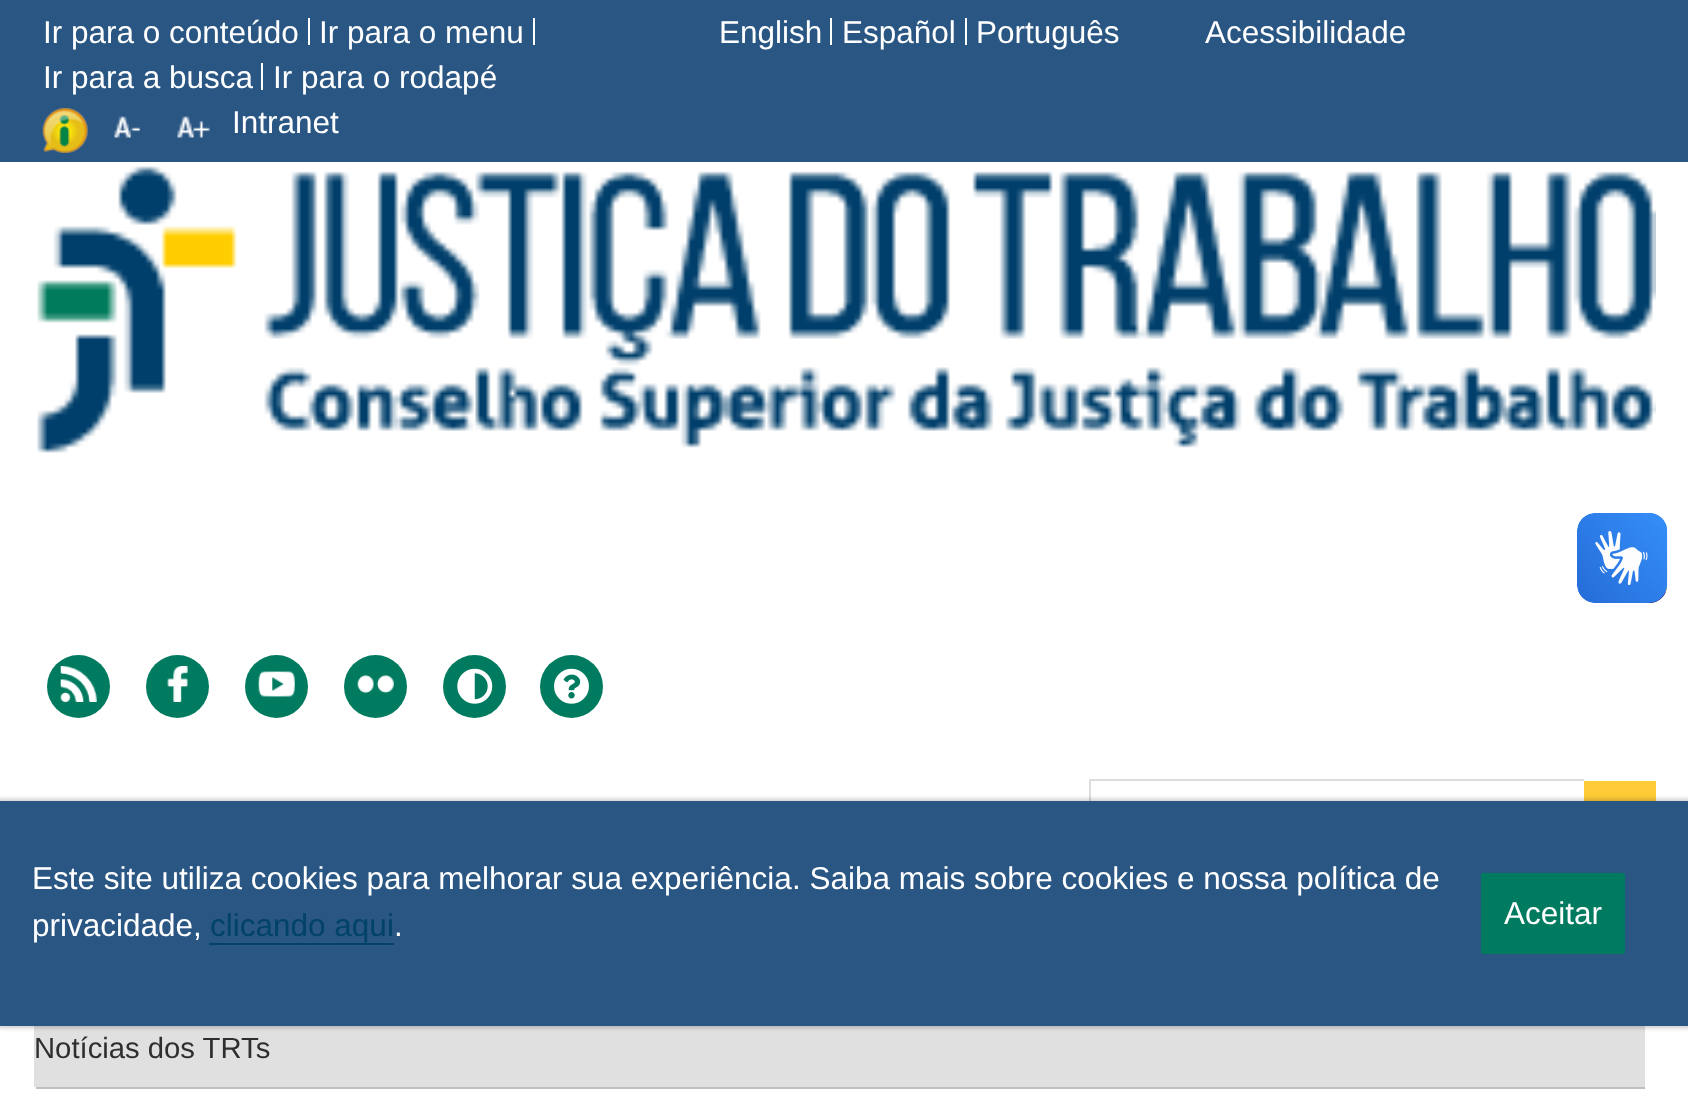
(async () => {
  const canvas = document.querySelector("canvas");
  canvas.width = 1688;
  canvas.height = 1115;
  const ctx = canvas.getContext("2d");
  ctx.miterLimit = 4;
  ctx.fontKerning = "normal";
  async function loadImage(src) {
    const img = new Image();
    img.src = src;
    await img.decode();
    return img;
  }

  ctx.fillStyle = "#ffffff";
  ctx.fillRect(0, 0, 1688, 1115);
  for (const [x, y, w, h, color] of [
    [0, 0, 1688, 162, "#2a5683"],
    [308, 18, 2, 27, "#ffffff"],
    [533, 18, 2, 27, "#ffffff"],
    [261, 63, 2, 27, "#ffffff"],
    [830, 18, 2, 27, "#ffffff"],
    [965, 18, 2, 27, "#ffffff"],
  ]) {
    ctx.fillStyle = color;
    ctx.fillRect(x, y, w, h);
  }
  ctx.drawImage(await loadImage("img/1.png"), 42, 108, 46, 45);
  ctx.drawImage(await loadImage("img/2.png"), 114, 116, 27, 22);
  ctx.drawImage(await loadImage("img/3.png"), 177, 116, 33, 22);
  ctx.drawImage(await loadImage("img/4.png"), 37, 166, 1619, 287);
  ctx.fillStyle = "#007b5f";
  ctx.beginPath();
  ctx.arc(78.5, 686.5, 31.5, 0, Math.PI * 2);
  ctx.fill();
  ctx.drawImage(await loadImage("img/5.png"), 60, 666, 37, 36);
  ctx.beginPath();
  ctx.arc(177.5, 686.5, 31.5, 0, Math.PI * 2);
  ctx.fill();
  ctx.drawImage(await loadImage("img/6.png"), 167, 666, 21, 36);
  ctx.beginPath();
  ctx.arc(276.5, 686.5, 31.5, 0, Math.PI * 2);
  ctx.fill();
  ctx.drawImage(await loadImage("img/7.png"), 258, 671, 37, 26);
  ctx.beginPath();
  ctx.arc(375.5, 686.5, 31.5, 0, Math.PI * 2);
  ctx.fill();
  ctx.drawImage(await loadImage("img/8.png"), 357, 675, 37, 19);
  ctx.beginPath();
  ctx.arc(474.5, 686.5, 31.5, 0, Math.PI * 2);
  ctx.fill();
  ctx.drawImage(await loadImage("img/9.png"), 457, 668, 36, 36);
  ctx.beginPath();
  ctx.arc(571.5, 686.5, 31.5, 0, Math.PI * 2);
  ctx.fill();
  ctx.drawImage(await loadImage("img/10.png"), 554, 668, 35, 36);
  for (const [x, y, w, h, color] of [
    [1089, 779, 495, 2, "#dddddd"],
    [1089, 779, 2, 22, "#dddddd"],
    [1584, 781, 72, 20, "#ffcc38"],
    [34, 1026, 1611, 61, "#e1e0e0"],
  ]) {
    ctx.fillStyle = color;
    ctx.fillRect(x, y, w, h);
  }
  ctx.fillStyle = "rgba(0, 0, 0, 0.2)";
  ctx.filter = "blur(2px)";
  ctx.beginPath();
  ctx.rect(-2, 799, 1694, 229);
  ctx.fill();
  ctx.filter = "none";
  ctx.fillStyle = "#2a5683";
  ctx.fillRect(0, 801, 1688, 225);
  ctx.fillStyle = "#01426a";
  ctx.fillRect(209, 943, 185, 2);
  ctx.fillStyle = "#007b5f";
  ctx.beginPath();
  ctx.roundRect(1481, 873, 144, 81, 2);
  ctx.fill();
  ctx.fillStyle = "#bfbfbf";
  ctx.fillRect(36, 1087, 1609, 2);
  ctx.drawImage(await loadImage("img/11.png"), 1577, 513, 91, 90);
  ctx.drawImage(await loadImage("img/12.png"), 1577, 513, 90, 90);
  ctx.font = "31.5px Liberation Sans";
  ctx.fillStyle = "#ffffff";
  for (const [text, x, y] of [
    ["Ir para o conteúdo", 43, 43],
    ["Ir para o menu", 319, 43],
    ["Ir para a busca", 43, 88],
    ["Ir para o rodapé", 273, 88],
    ["English", 719, 43],
    ["Español", 842, 43],
    ["Português", 976, 43],
    ["Acessibilidade", 1205, 43],
    ["Intranet", 232, 133],
    ["Este site utiliza cookies para melhorar sua experiência. Saiba mais sobre cookies e nossa política de", 32, 889],
    ["privacidade,", 32, 936],
  ]) {
    ctx.fillText(text, x, y);
  }
  ctx.fillStyle = "#01426a";
  ctx.fillText("clicando aqui", 210, 936);
  ctx.fillStyle = "#ffffff";
  ctx.fillText(".", 394, 936);
  ctx.fillText("Aceitar", 1504, 924);
  ctx.font = "29.25px Liberation Sans";
  ctx.fillStyle = "#2e2e2e";
  ctx.fillText("Notícias dos TRTs", 34, 1058);
})();
